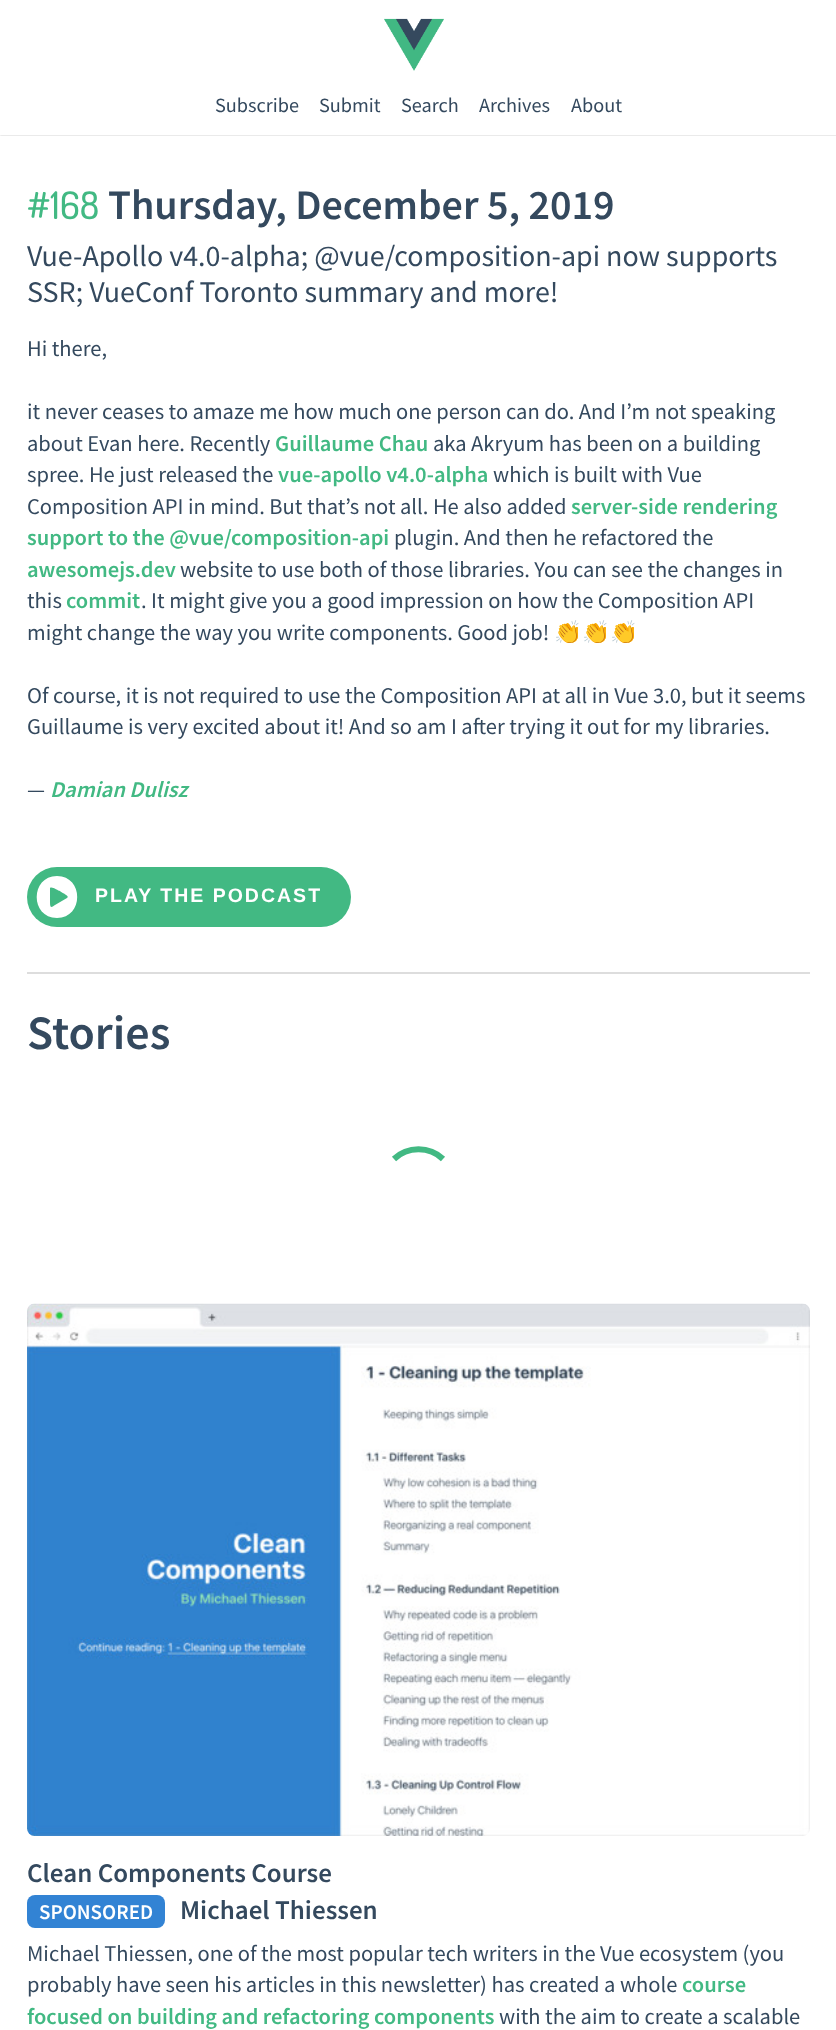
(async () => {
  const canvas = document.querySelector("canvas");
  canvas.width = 836;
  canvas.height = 2030;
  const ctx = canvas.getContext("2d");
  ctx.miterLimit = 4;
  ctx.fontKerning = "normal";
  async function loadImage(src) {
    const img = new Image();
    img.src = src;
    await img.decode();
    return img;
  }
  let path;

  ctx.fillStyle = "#ffffff";
  ctx.fillRect(0, 0, 836, 2030);
  ctx.save();
  ctx.beginPath();
  ctx.rect(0, 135, 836, 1);
  ctx.clip();
  ctx.fillStyle = "rgba(0, 0, 0, 0.25)";
  ctx.filter = "blur(1px)";
  ctx.beginPath();
  ctx.rect(0, 0, 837, 135);
  ctx.fill();
  ctx.filter = "none";
  ctx.restore();
  ctx.drawImage(await loadImage("img/1.png"), 384, 18, 60, 53);
  ctx.fillStyle = "#42b983";
  ctx.beginPath();
  ctx.roundRect(27, 867, 324, 60, 30);
  ctx.fill();
  ctx.fillStyle = "#ffffff";
  path = new Path2D("M57 876C30 876 30 918 57 918C84 918 84 876 57 876ZM67 898L55 905C51 908 50 908 50 902V888C52 886 58 891 60 891C60 892 71 896 67 898Z");
  ctx.fill(path);
  ctx.fillStyle = "#dddddd";
  ctx.fillRect(27, 972, 783, 2);
  path = new Path2D("M394 1159C407.5 1146 429.5 1146 443 1159M394 1159C407.5 1146 429.5 1146 443 1159");
  ctx.strokeStyle = "#42b983";
  ctx.lineWidth = 6;
  ctx.stroke(path);
  ctx.drawImage(await loadImage("img/2.png"), 27, 1303, 783, 533);
  ctx.fillStyle = "#3283d4";
  ctx.beginPath();
  ctx.roundRect(27, 1895, 138, 33, 8);
  ctx.fill();
  ctx.font = "20.25px Source Sans Pro";
  ctx.fillStyle = "#34495e";
  for (const [text, x, y] of [
    ["Subscribe", 215, 112],
    ["Submit", 319, 112],
    ["Search", 401, 112],
    ["Archives", 479, 112],
    ["About", 571, 112],
  ]) {
    ctx.fillText(text, x, y);
  }
  ctx.font = "500 38px Dosis";
  ctx.fillStyle = "#42b983";
  ctx.fillText("#168", 27, 219);
  ctx.font = "600 42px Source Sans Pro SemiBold";
  ctx.fillStyle = "#34495e";
  ctx.fillText("Thursday, December 5, 2019", 108, 219);
  ctx.font = "30px Source Sans Pro";
  ctx.fillText("Vue-Apollo v4.0-alpha; @vue/composition-api now supports", 27, 266);
  ctx.fillText("SSR; VueConf Toronto summary and more!", 27, 302);
  ctx.font = "22.5px Source Sans Pro";
  for (const [text, x, y] of [
    ["Hi there,", 27, 356],
    ["it never ceases to amaze me how much one person can do. And I’m not speaking", 27, 419],
    ["about Evan here. Recently", 27, 451],
  ]) {
    ctx.fillText(text, x, y);
  }
  ctx.font = "600 22.5px Source Sans Pro SemiBold";
  ctx.fillStyle = "#42b983";
  ctx.fillText("Guillaume Chau", 275, 451);
  ctx.font = "22.5px Source Sans Pro";
  ctx.fillStyle = "#34495e";
  ctx.fillText("aka Akryum has been on a building", 433, 451);
  ctx.fillText("spree. He just released the", 27, 482);
  ctx.font = "600 22.5px Source Sans Pro SemiBold";
  ctx.fillStyle = "#42b983";
  ctx.fillText("vue-apollo v4.0-alpha", 278, 482);
  ctx.font = "22.5px Source Sans Pro";
  ctx.fillStyle = "#34495e";
  ctx.fillText("which is built with Vue", 493, 482);
  ctx.fillText("Composition API in mind. But that’s not all. He also added", 27, 514);
  ctx.font = "600 22.5px Source Sans Pro SemiBold";
  ctx.fillStyle = "#42b983";
  ctx.fillText("server-side rendering", 571, 514);
  ctx.fillText("support to the @vue/composition-api", 27, 545);
  ctx.font = "22.5px Source Sans Pro";
  ctx.fillStyle = "#34495e";
  ctx.fillText("plugin. And then he refactored the", 394, 545);
  ctx.font = "600 22.5px Source Sans Pro SemiBold";
  ctx.fillStyle = "#42b983";
  ctx.fillText("awesomejs.dev", 27, 577);
  ctx.font = "22.5px Source Sans Pro";
  ctx.fillStyle = "#34495e";
  ctx.fillText("website to use both of those libraries. You can see the changes in", 180, 577);
  ctx.fillText("this", 27, 608);
  ctx.font = "600 22.5px Source Sans Pro SemiBold";
  ctx.fillStyle = "#42b983";
  ctx.fillText("commit", 66, 608);
  ctx.font = "22.5px Source Sans Pro";
  ctx.fillStyle = "#34495e";
  ctx.fillText(". It might give you a good impression on how the Composition API", 141, 608);
  ctx.fillText("might change the way you write components. Good job!", 27, 640);
  ctx.font = "22.5px Noto Color Emoji";
  ctx.fillText("👏👏👏", 554, 640);
  ctx.font = "22.5px Source Sans Pro";
  for (const [text, x, y] of [
    ["Of course, it is not required to use the Composition API at all in Vue 3.0, but it seems", 27, 703],
    ["Guillaume is very excited about it! And so am I after trying it out for my libraries.", 27, 734],
    ["—", 27, 797],
  ]) {
    ctx.fillText(text, x, y);
  }
  ctx.font = "italic 600 22.5px Source Sans Pro SemiBold";
  ctx.fillStyle = "#42b983";
  ctx.fillText("Damian Dulisz", 50, 797);
  ctx.letterSpacing = "2px";
  ctx.font = "bold 19.5px Liberation Sans";
  ctx.fillStyle = "#ffffff";
  ctx.fillText("PLAY THE PODCAST", 95, 902);
  ctx.letterSpacing = "0px";
  ctx.font = "600 48px Source Sans Pro SemiBold";
  ctx.fillStyle = "#34495e";
  ctx.fillText("Stories", 27, 1049);
  ctx.font = "600 27px Source Sans Pro SemiBold";
  ctx.fillText("Clean Components Course", 27, 1882);
  ctx.font = "600 21px Source Sans Pro SemiBold";
  ctx.fillStyle = "#ffffff";
  ctx.fillText("SPONSORED", 39, 1919);
  ctx.font = "600 27px Source Sans Pro SemiBold";
  ctx.fillStyle = "#34495e";
  ctx.fillText("Michael Thiessen", 180, 1919);
  ctx.font = "22.5px Source Sans Pro";
  ctx.fillText("Michael Thiessen, one of the most popular tech writers in the Vue ecosystem (you", 27, 1961);
  ctx.fillText("probably have seen his articles in this newsletter) has created a whole", 27, 1992);
  ctx.font = "600 22.5px Source Sans Pro SemiBold";
  ctx.fillStyle = "#42b983";
  ctx.fillText("course", 682, 1992);
  ctx.fillText("focused on building and refactoring components", 27, 2024);
  ctx.font = "22.5px Source Sans Pro";
  ctx.fillStyle = "#34495e";
  ctx.fillText("with the aim to create a scalable", 499, 2024);
})();
